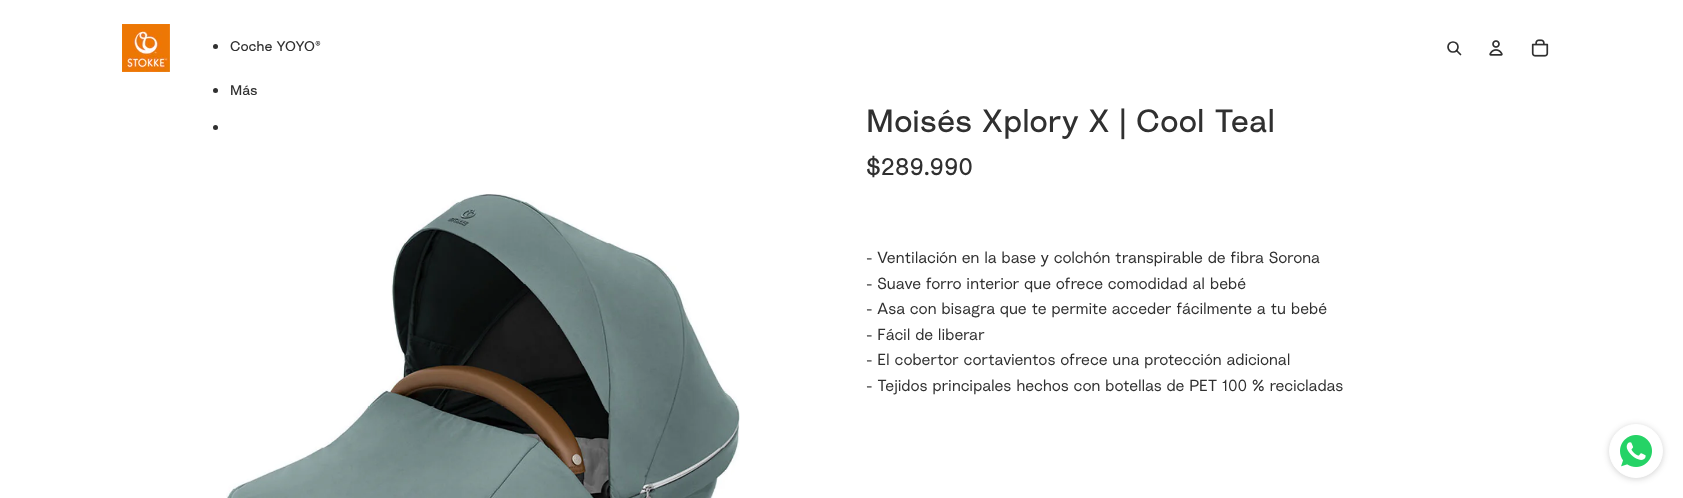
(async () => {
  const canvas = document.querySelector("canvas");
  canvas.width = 1683;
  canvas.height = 498;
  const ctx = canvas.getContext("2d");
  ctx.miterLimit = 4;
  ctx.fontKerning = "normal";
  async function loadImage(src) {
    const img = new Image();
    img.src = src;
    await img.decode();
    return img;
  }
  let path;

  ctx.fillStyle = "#ffffff";
  ctx.fillRect(0, 0, 1683, 498);
  ctx.drawImage(await loadImage("img/1.png"), 122, 24, 48, 48);
  ctx.fillStyle = "#303030";
  ctx.beginPath();
  ctx.arc(215.5, 46.5, 2.5, 0, Math.PI * 2);
  ctx.fill();
  ctx.beginPath();
  ctx.arc(215.5, 90.5, 2.5, 0, Math.PI * 2);
  ctx.fill();
  ctx.beginPath();
  ctx.arc(215.5, 127.5, 2.5, 0, Math.PI * 2);
  ctx.fill();
  ctx.beginPath();
  ctx.arc(1453, 47, 5, 0, Math.PI * 2);
  ctx.strokeStyle = "#303030";
  ctx.lineWidth = 1.7;
  ctx.stroke();
  path = new Path2D("M1457 51L1460.5 54.5");
  ctx.strokeStyle = "rgba(0, 0, 0, 0.81)";
  ctx.lineCap = "round";
  ctx.lineJoin = "round";
  ctx.stroke(path);
  ctx.drawImage(await loadImage("img/2.png"), 1489, 40, 14, 16);
  ctx.drawImage(await loadImage("img/3.png"), 1531, 39, 18, 18);
  ctx.drawImage(await loadImage("img/4.png"), 226, 194, 514, 304);
  ctx.fillStyle = "rgba(27, 27, 27, 0.2)";
  ctx.filter = "blur(3px)";
  ctx.beginPath();
  ctx.roundRect(1609, 425, 54, 54, 27);
  ctx.fill();
  ctx.filter = "none";
  ctx.fillStyle = "#ffffff";
  ctx.beginPath();
  ctx.arc(1636, 451, 26.5, 0, Math.PI * 2);
  ctx.fill();
  ctx.strokeStyle = "#ffffff";
  ctx.lineWidth = 1;
  ctx.stroke();
  ctx.drawImage(await loadImage("img/5.png"), 1620, 435, 32, 32);
  ctx.font = "14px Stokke";
  ctx.fillStyle = "#303030";
  ctx.fillText("Coche YOYO®", 230, 51);
  ctx.fillText("Más", 230, 95);
  ctx.font = "32px Stokke";
  ctx.fillText("Moisés Xplory X | Cool Teal", 866, 132);
  ctx.font = "24px Stokke";
  ctx.fillText("$289.990", 866, 175);
  ctx.font = "300 16px Stokke";
  for (const [text, x, y] of [
    ["- Ventilación en la base y colchón transpirable de fibra Sorona", 866, 263],
    ["- Suave forro interior que ofrece comodidad al bebé", 866, 289],
    ["- Asa con bisagra que te permite acceder fácilmente a tu bebé", 866, 314],
    ["- Fácil de liberar", 866, 340],
    ["- El cobertor cortavientos ofrece una protección adicional", 866, 365],
    ["- Tejidos principales hechos con botellas de PET 100 % recicladas", 866, 391],
  ]) {
    ctx.fillText(text, x, y);
  }
})();
